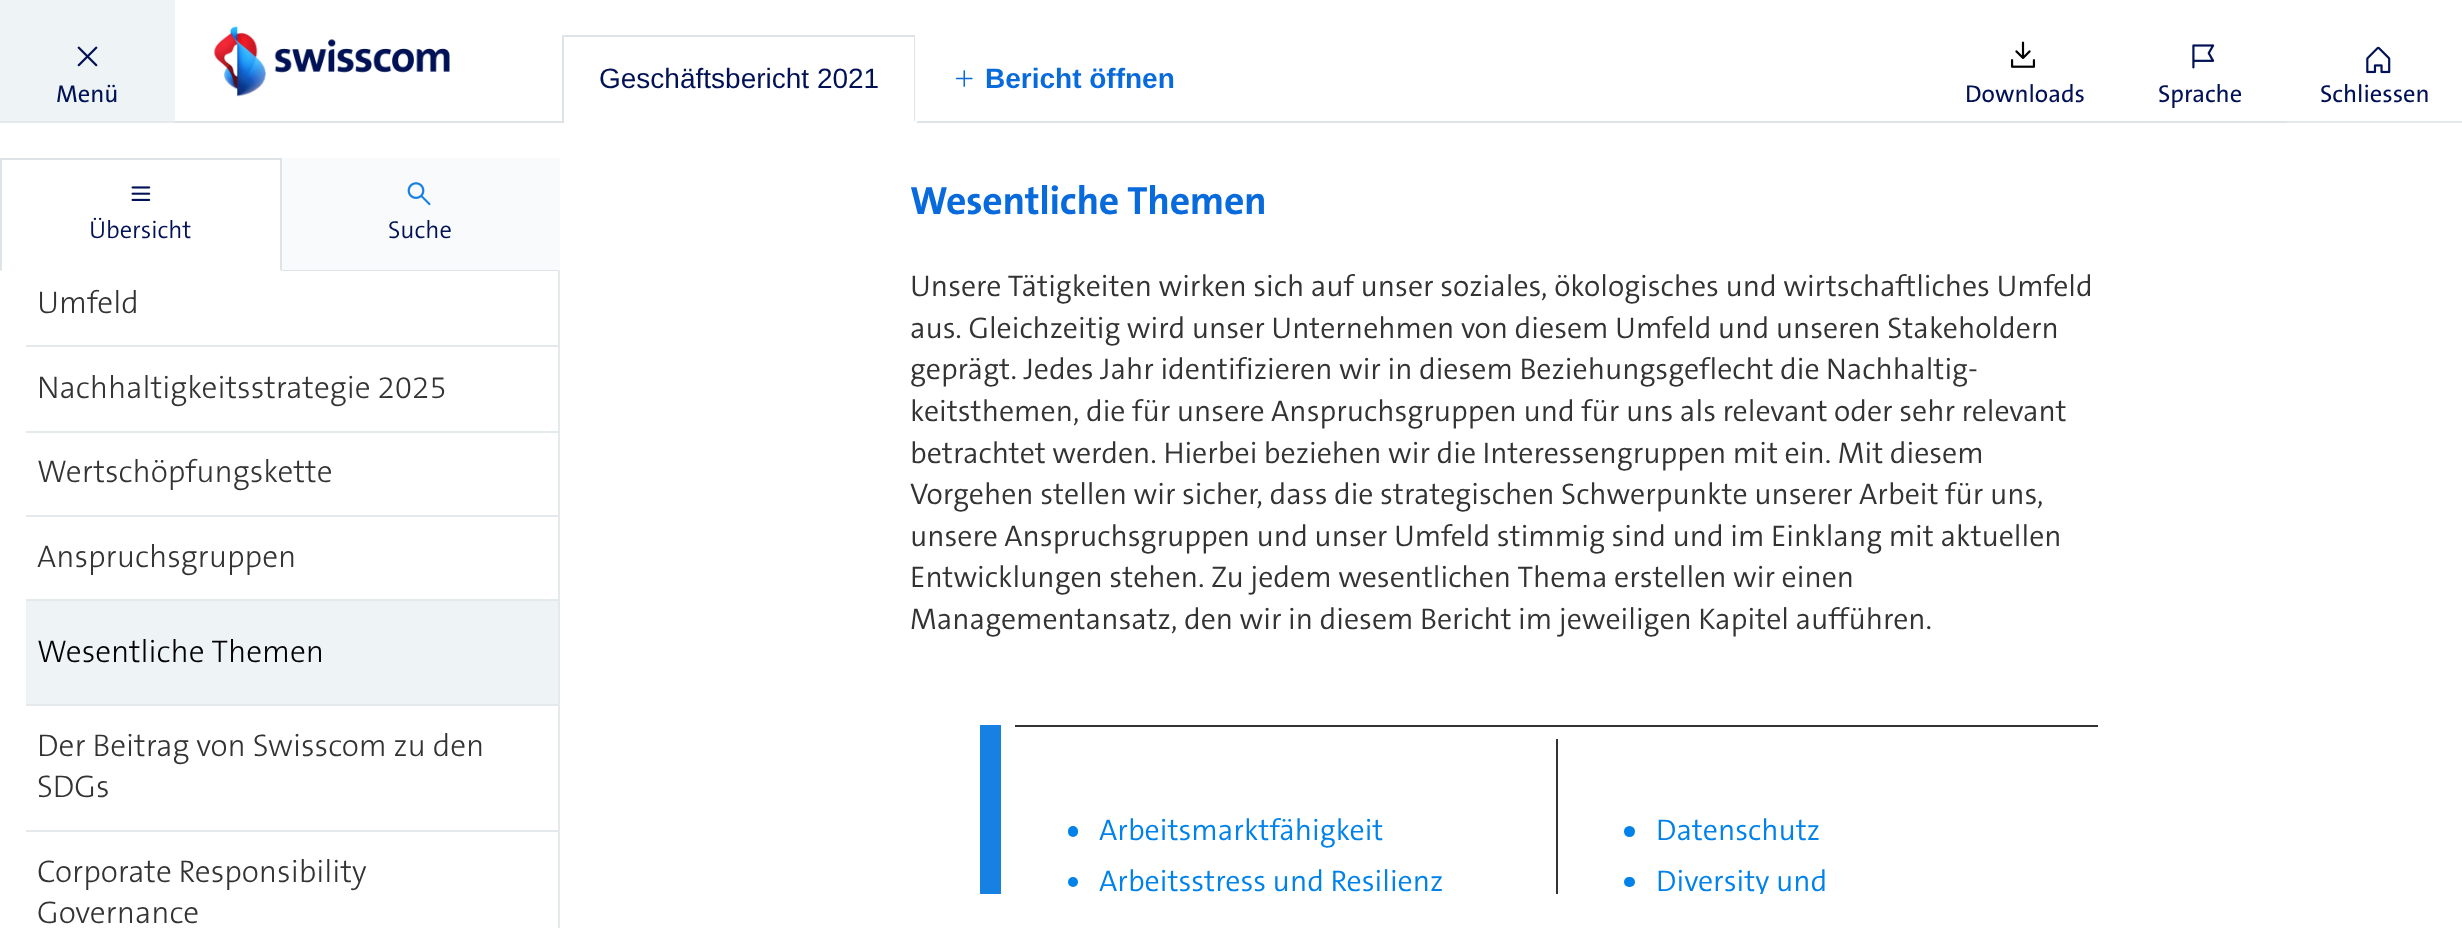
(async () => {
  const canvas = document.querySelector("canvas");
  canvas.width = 2462;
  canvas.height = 928;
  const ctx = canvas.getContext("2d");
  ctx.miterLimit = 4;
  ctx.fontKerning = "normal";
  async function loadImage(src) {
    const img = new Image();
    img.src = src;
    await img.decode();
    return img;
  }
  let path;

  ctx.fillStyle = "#ffffff";
  ctx.fillRect(0, 0, 2462, 928);
  for (const [x, y, w, h, color] of [
    [175, 121, 2112, 2, "#dde3e7"],
    [562, 35, 353, 2, "#dde3e7"],
    [914, 35, 1, 88, "#dde3e7"],
    [562, 121, 353, 2, "#ffffff"],
    [562, 35, 2, 88, "#dde3e7"],
    [915, 121, 2, 2, "#ffffff"],
  ]) {
    ctx.fillStyle = color;
    ctx.fillRect(x, y, w, h);
  }
  ctx.drawImage(await loadImage("img/1.png"), 955, 70, 18, 17);
  ctx.fillStyle = "#eef3f6";
  ctx.fillRect(0, 0, 175, 121);
  ctx.fillStyle = "#e4e9ec";
  ctx.fillRect(0, 121, 175, 2);
  ctx.drawImage(await loadImage("img/2.png"), 77, 46, 21, 21);
  ctx.drawImage(await loadImage("img/3.png"), 214, 26, 236, 71);
  ctx.drawImage(await loadImage("img/4.png"), 2010, 41, 26, 27);
  ctx.drawImage(await loadImage("img/5.png"), 2192, 44, 23, 25);
  ctx.fillRect(2287, 121, 175, 2);
  ctx.drawImage(await loadImage("img/6.png"), 2366, 46, 25, 28);
  ctx.fillStyle = "#dde3e7";
  ctx.fillRect(0, 158, 282, 2);
  path = new Path2D("M282 158V271L280 270V159Z");
  ctx.fill(path);
  path = new Path2D("M0 271V158L2 159V270Z");
  ctx.fill(path);
  ctx.drawImage(await loadImage("img/7.png"), 131, 186, 20, 15);
  ctx.fillStyle = "#f8fafb";
  ctx.fillRect(282, 158, 278, 113);
  ctx.fillStyle = "#dde3e7";
  path = new Path2D("M560 271H282V270H558Z");
  ctx.fill(path);
  ctx.drawImage(await loadImage("img/8.png"), 407, 182, 24, 24);
  for (const [x, y, w, h, color] of [
    [558, 271, 2, 657, "#e4e9ec"],
    [26, 345, 532, 2, "#e4e9ec"],
    [26, 431, 532, 2, "#e4e9ec"],
    [26, 515, 532, 2, "#e4e9ec"],
    [26, 599, 532, 2, "#e4e9ec"],
    [26, 601, 532, 103, "#eef3f6"],
    [26, 704, 532, 2, "#e4e9ec"],
    [26, 830, 532, 2, "#e4e9ec"],
    [980, 725, 21, 169, "#1781e3"],
    [1015, 725, 1083, 2, "#333333"],
  ]) {
    ctx.fillStyle = color;
    ctx.fillRect(x, y, w, h);
  }
  ctx.fillStyle = "#0082ea";
  ctx.beginPath();
  ctx.roundRect(1068, 826, 10, 11, 5);
  ctx.fill();
  ctx.beginPath();
  ctx.arc(1073, 882, 5, 0, Math.PI * 2);
  ctx.fill();
  ctx.fillStyle = "#333333";
  ctx.fillRect(1556, 739, 2, 155);
  ctx.fillStyle = "#0082ea";
  ctx.beginPath();
  ctx.arc(1629.5, 831.5, 5.5, 0, Math.PI * 2);
  ctx.fill();
  ctx.beginPath();
  ctx.roundRect(1624, 877, 11, 10, 5);
  ctx.fill();
  ctx.font = "28px Liberation Sans";
  ctx.fillStyle = "#001155";
  ctx.fillText("Geschäftsbericht 2021", 599, 88);
  ctx.font = "bold 28px Liberation Sans";
  ctx.fillStyle = "#086adb";
  ctx.fillText("Bericht öffnen", 985, 88);
  ctx.font = "500 24.5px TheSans";
  ctx.fillStyle = "#001155";
  for (const [text, x, y] of [
    ["Menü", 56, 102],
    ["Downloads", 1965, 102],
    ["Sprache", 2158, 102],
    ["Schliessen", 2320, 102],
  ]) {
    ctx.fillText(text, x, y);
  }
  ctx.font = "300 24.5px TheSans";
  ctx.fillText("Übersicht", 89, 238);
  ctx.fillText("Suche", 388, 238);
  ctx.font = "300 31.5px 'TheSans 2'";
  ctx.fillStyle = "#333333";
  for (const [text, x, y] of [
    ["Umfeld", 37, 313],
    ["Nachhaltigkeitsstrategie 2025", 37, 398],
    ["Wertschöpfungskette", 37, 482],
    ["Anspruchsgruppen", 37, 567],
  ]) {
    ctx.fillText(text, x, y);
  }
  ctx.fillStyle = "#000000";
  ctx.fillText("Wesentliche Themen", 37, 662);
  ctx.fillStyle = "#333333";
  for (const [text, x, y] of [
    ["Der Beitrag von Swisscom zu den", 37, 756],
    ["SDGs", 37, 797],
    ["Corporate Responsibility", 37, 882],
    ["Governance", 37, 923],
  ]) {
    ctx.fillText(text, x, y);
  }
  ctx.letterSpacing = "-0.3px";
  ctx.font = "bold 39.75px TheSans";
  ctx.fillStyle = "#086adb";
  ctx.fillText("Wesentliche Themen", 910, 214);
  ctx.letterSpacing = "0px";
  ctx.font = "300 29.95px TheSans";
  ctx.fillStyle = "#333333";
  for (const [text, x, y] of [
    ["Unsere Tätigkeiten wirken sich auf unser soziales, ökologisches und wirtschaftliches Umfeld", 910, 296],
    ["aus. Gleichzeitig wird unser Unternehmen von diesem Umfeld und unseren Stakeholdern", 910, 338],
    ["geprägt. Jedes Jahr identifizieren wir in diesem Beziehungsgeflecht die Nachhaltig-", 910, 379],
    ["keitsthemen, die für unsere Anspruchsgruppen und für uns als relevant oder sehr relevant", 910, 421],
    ["betrachtet werden. Hierbei beziehen wir die Interessengruppen mit ein. Mit diesem", 910, 463],
    ["Vorgehen stellen wir sicher, dass die strategischen Schwerpunkte unserer Arbeit für uns,", 910, 504],
    ["unsere Anspruchsgruppen und unser Umfeld stimmig sind und im Einklang mit aktuellen", 910, 546],
    ["Entwicklungen stehen. Zu jedem wesentlichen Thema erstellen wir einen", 910, 587],
    ["Managementansatz, den wir in diesem Bericht im jeweiligen Kapitel aufführen.", 910, 629],
  ]) {
    ctx.fillText(text, x, y);
  }
  ctx.fillStyle = "#0082ea";
  for (const [text, x, y] of [
    ["Arbeitsmarktfähigkeit", 1099, 840],
    ["Arbeitsstress und Resilienz", 1099, 891],
    ["Datenschutz", 1656, 840],
  ]) {
    ctx.fillText(text, x, y);
  }
  ctx.save();
  ctx.beginPath();
  ctx.rect(560, 88, 1902, 806);
  ctx.clip();
  ctx.fillText("Diversity und", 1656, 891);
  ctx.restore();
})();
